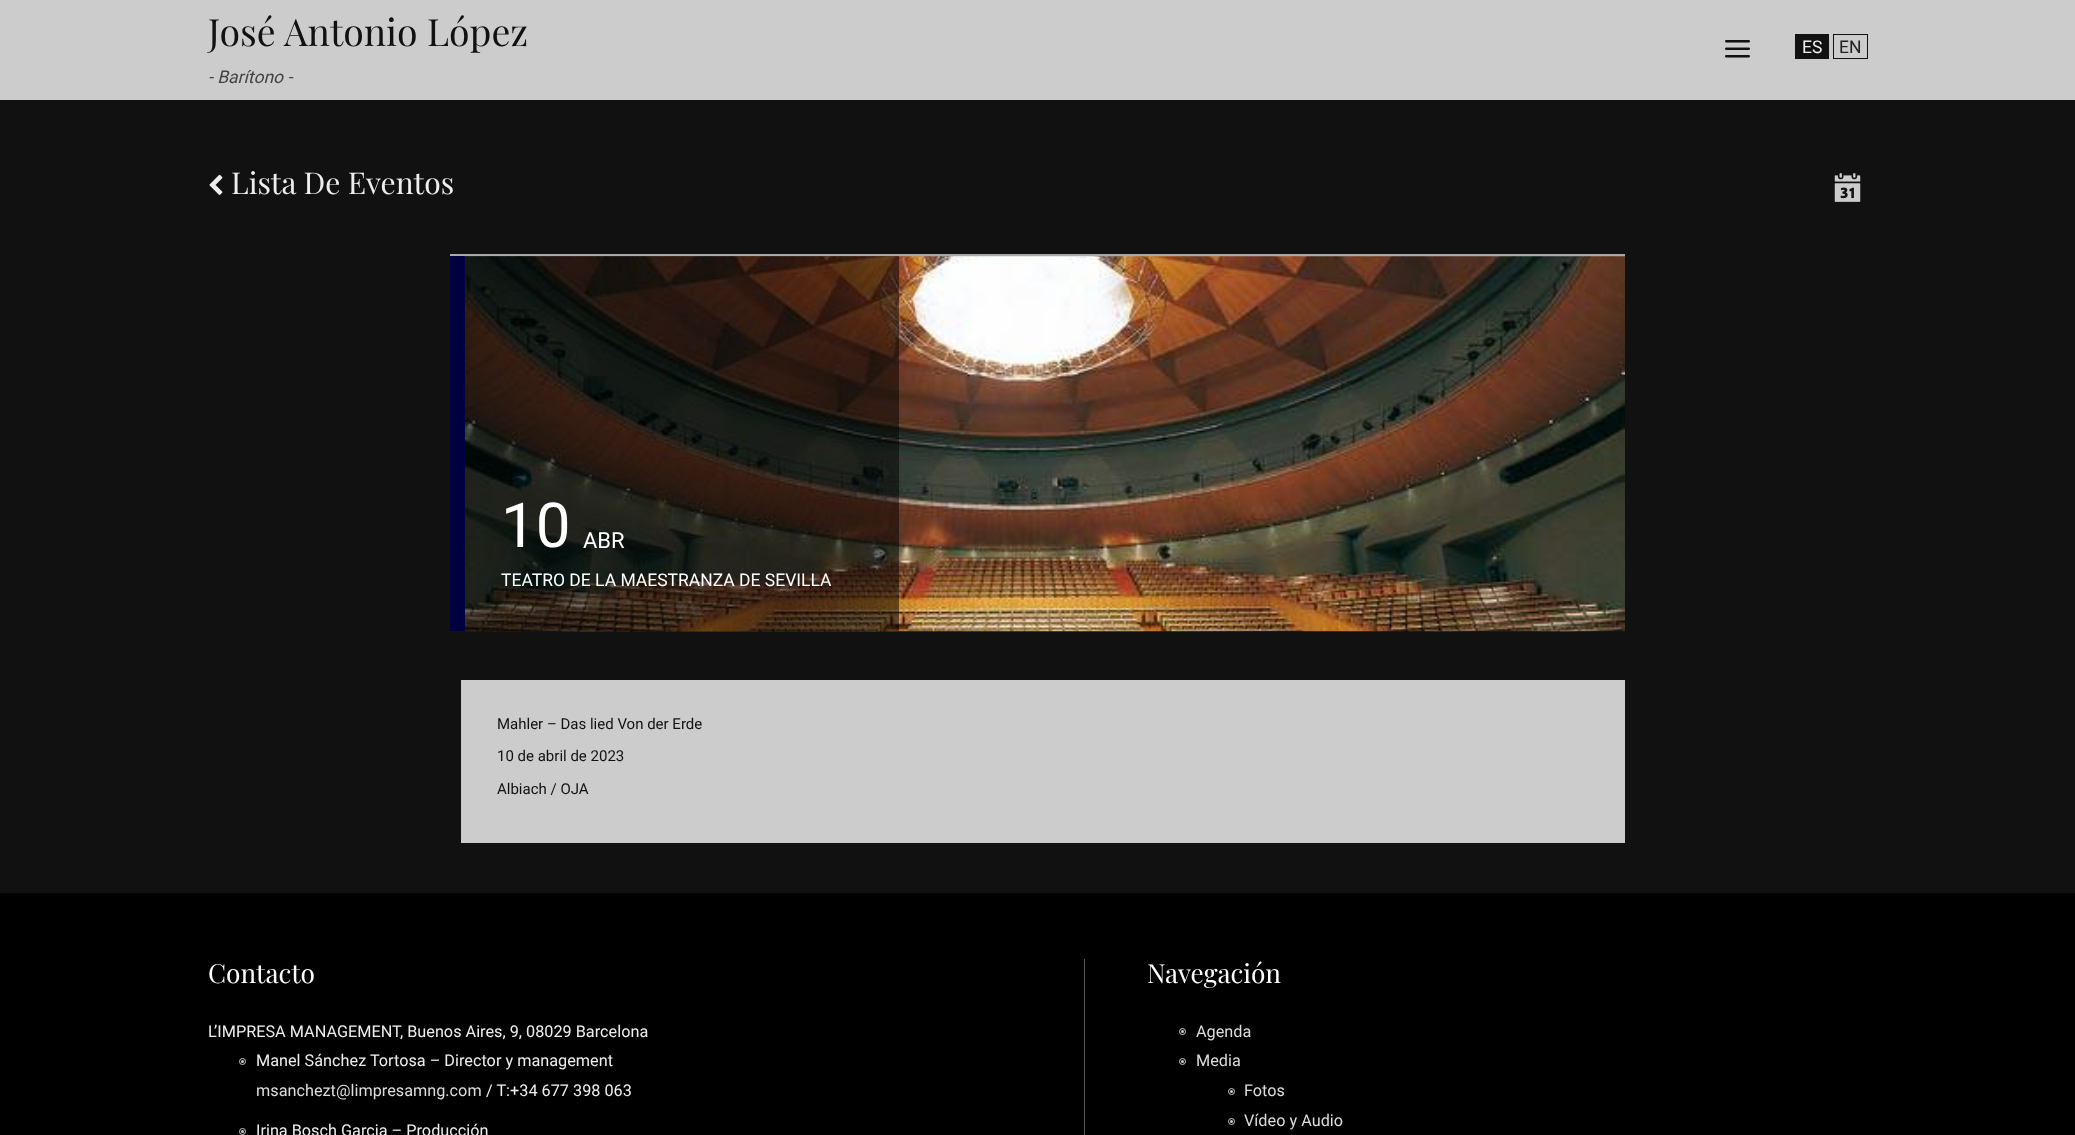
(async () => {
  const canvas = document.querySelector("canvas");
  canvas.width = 2075;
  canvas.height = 1135;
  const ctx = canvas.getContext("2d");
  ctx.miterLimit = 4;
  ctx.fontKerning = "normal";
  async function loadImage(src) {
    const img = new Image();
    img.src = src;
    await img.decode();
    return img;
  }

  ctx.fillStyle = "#111111";
  ctx.fillRect(0, 0, 2075, 1135);
  ctx.fillStyle = "#cccccc";
  ctx.fillRect(0, 0, 2075, 100);
  ctx.drawImage(await loadImage("img/1.png"), 1725, 40, 25, 18);
  ctx.fillStyle = "#111111";
  ctx.fillRect(1795, 34, 34, 25);
  ctx.strokeStyle = "#111111";
  ctx.strokeRect(1833.5, 34.5, 34, 24);
  ctx.drawImage(await loadImage("img/2.png"), 209, 174, 14, 21);
  ctx.drawImage(await loadImage("img/3.png"), 1834, 173, 27, 29);
  ctx.fillStyle = "#aaaaaa";
  ctx.fillRect(450, 254, 1175, 3);
  ctx.drawImage(await loadImage("img/4.png"), 465, 256, 1160, 376);
  for (const [x, y, w, h, color] of [
    [450, 256, 15, 375, "#000040"],
    [465, 256, 434, 375, "rgba(0, 0, 0, 0.5)"],
    [461, 680, 1164, 163, "#cccccc"],
    [0, 893, 2075, 242, "#000000"],
  ]) {
    ctx.fillStyle = color;
    ctx.fillRect(x, y, w, h);
  }
  ctx.beginPath();
  ctx.arc(242.5, 1061.5, 3, 0, Math.PI * 2);
  ctx.strokeStyle = "#cccccc";
  ctx.stroke();
  ctx.fillStyle = "#cccccc";
  ctx.beginPath();
  ctx.arc(242.5, 1061.5, 1.5, 0, Math.PI * 2);
  ctx.fill();
  ctx.beginPath();
  ctx.arc(242.5, 1131.5, 3, 0, Math.PI * 2);
  ctx.stroke();
  ctx.beginPath();
  ctx.arc(242.5, 1131.5, 1.5, 0, Math.PI * 2);
  ctx.fill();
  ctx.fillStyle = "#555555";
  ctx.fillRect(1084, 959, 1, 176);
  ctx.beginPath();
  ctx.arc(1182.5, 1031.5, 3, 0, Math.PI * 2);
  ctx.stroke();
  ctx.fillStyle = "#cccccc";
  ctx.beginPath();
  ctx.arc(1182.5, 1031.5, 1.5, 0, Math.PI * 2);
  ctx.fill();
  ctx.beginPath();
  ctx.arc(1182.5, 1061.5, 3, 0, Math.PI * 2);
  ctx.stroke();
  ctx.beginPath();
  ctx.arc(1182.5, 1061.5, 1.5, 0, Math.PI * 2);
  ctx.fill();
  ctx.beginPath();
  ctx.arc(1231.5, 1091.5, 3, 0, Math.PI * 2);
  ctx.stroke();
  ctx.beginPath();
  ctx.arc(1231.5, 1091.5, 1.5, 0, Math.PI * 2);
  ctx.fill();
  ctx.beginPath();
  ctx.arc(1231.5, 1121.5, 3, 0, Math.PI * 2);
  ctx.stroke();
  ctx.beginPath();
  ctx.arc(1231.5, 1121.5, 1.5, 0, Math.PI * 2);
  ctx.fill();
  ctx.font = "37.5px Playfair Display";
  ctx.fillStyle = "#111111";
  ctx.fillText("José Antonio López", 208, 46);
  ctx.font = "italic 17.5px Roboto";
  ctx.fillStyle = "#444444";
  ctx.fillText("- Barítono -", 208, 83);
  ctx.font = "17.5px Roboto";
  ctx.fillStyle = "#eeeeee";
  ctx.fillText("ES", 1802, 53);
  ctx.fillStyle = "#222222";
  ctx.fillText("EN", 1839, 53);
  ctx.font = "30px Playfair Display";
  ctx.fillStyle = "#eeeeee";
  ctx.fillText("Lista De Eventos", 231, 194);
  ctx.font = "62px Roboto";
  ctx.fillStyle = "#ffffff";
  ctx.fillText("10", 501, 547);
  ctx.font = "22px Roboto";
  ctx.fillText("ABR", 583, 548);
  ctx.font = "17.5px Roboto";
  ctx.fillText("TEATRO DE LA MAESTRANZA DE SEVILLA", 501, 586);
  ctx.font = "15px Roboto";
  ctx.fillStyle = "#111111";
  for (const [text, x, y] of [
    ["Mahler – Das lied Von der Erde", 497, 729],
    ["10 de abril de 2023", 497, 761],
    ["Albiach / OJA", 497, 794],
  ]) {
    ctx.fillText(text, x, y);
  }
  ctx.font = "26.25px Playfair Display";
  ctx.fillStyle = "#ffffff";
  ctx.fillText("Contacto", 208, 983);
  ctx.font = "16.25px 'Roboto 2'";
  ctx.fillStyle = "#eeeeee";
  ctx.fillText("L’IMPRESA MANAGEMENT, Buenos Aires, 9, 08029 Barcelona", 208, 1037);
  ctx.fillText("Manel Sánchez Tortosa – Director y management", 256, 1066);
  ctx.fillStyle = "#dddddd";
  ctx.fillText("msanchezt@limpresamng.com", 256, 1096);
  ctx.fillStyle = "#eeeeee";
  ctx.fillText("/ T:+34 677 398 063", 486, 1096);
  ctx.fillText("Irina Bosch Garcia – Producción", 256, 1136);
  ctx.font = "26.25px Playfair Display";
  ctx.fillStyle = "#ffffff";
  ctx.fillText("Navegación", 1147, 983);
  ctx.font = "16.25px 'Roboto 2'";
  ctx.fillStyle = "#dddddd";
  for (const [text, x, y] of [
    ["Agenda", 1196, 1037],
    ["Media", 1196, 1066],
    ["Fotos", 1244, 1096],
    ["Vídeo y Audio", 1244, 1126],
  ]) {
    ctx.fillText(text, x, y);
  }
})();
